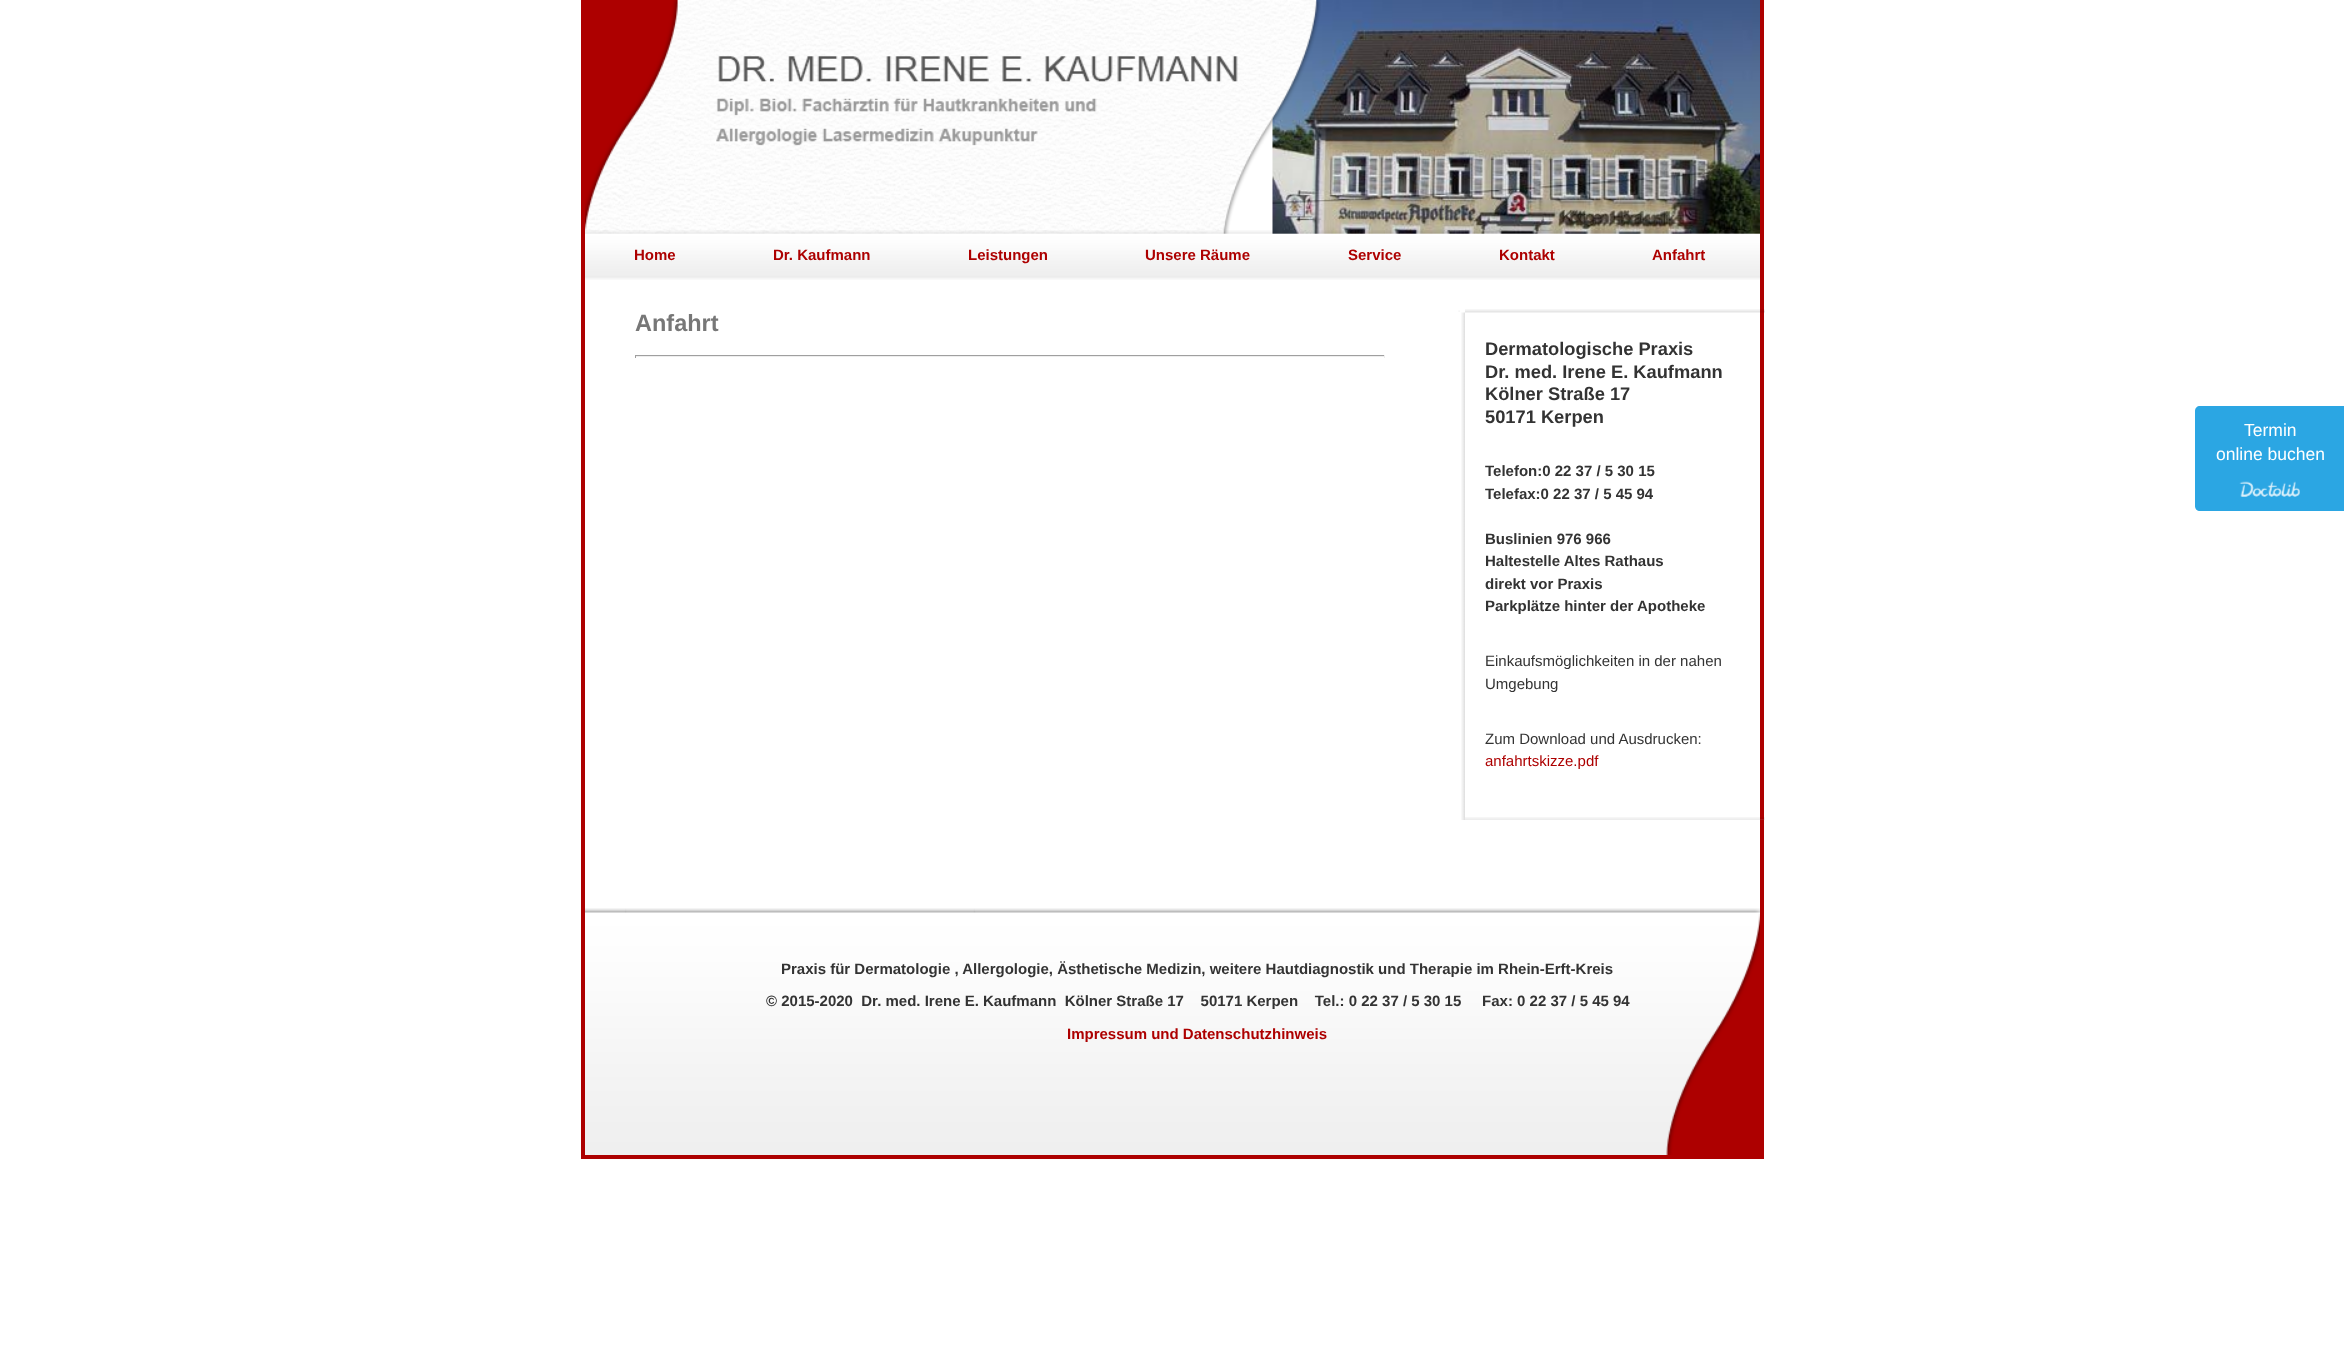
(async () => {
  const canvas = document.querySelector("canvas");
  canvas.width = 2344;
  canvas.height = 1352;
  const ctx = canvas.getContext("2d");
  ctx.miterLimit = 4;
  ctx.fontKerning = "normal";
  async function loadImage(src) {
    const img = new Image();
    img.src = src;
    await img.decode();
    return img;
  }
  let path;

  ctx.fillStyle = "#ffffff";
  ctx.fillRect(0, 0, 2344, 1352);
  for (const [x, y, w, h, color] of [
    [1760, 0, 4, 1159, "#ad0000"],
    [581, 1155, 1183, 4, "#ad0000"],
    [581, 0, 4, 1159, "#ad0000"],
  ]) {
    ctx.fillStyle = color;
    ctx.fillRect(x, y, w, h);
  }
  ctx.drawImage(await loadImage("img/2.png"), 1272, 0, 488, 234);
  ctx.drawImage(await loadImage("img/1.png"), 585, 0, 736, 234);
  ctx.drawImage(await loadImage("img/3.png"), 585, 230, 1175, 50);
  for (const [x, y, w, h, color] of [
    [635, 355, 750, 1, "#9f9f9f"],
    [1384, 355, 1, 3, "#eeeeee"],
    [635, 356, 750, 1, "#eeeeee"],
    [635, 355, 1, 3, "#9f9f9f"],
  ]) {
    ctx.fillStyle = color;
    ctx.fillRect(x, y, w, h);
  }
  ctx.drawImage(await loadImage("img/4.png"), 1458, 310, 2, 2);
  ctx.drawImage(await loadImage("img/5.png"), 1465, 309, 300, 4);
  ctx.drawImage(await loadImage("img/6.png"), 1461, 312, 4, 508);
  ctx.drawImage(await loadImage("img/7.png"), 1465, 817, 300, 3);
  ctx.drawImage(await loadImage("img/8.png"), 585, 908, 1175, 247);
  ctx.fillStyle = "#2ba6e3";
  path = new Path2D("M2200 406H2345V511H2200C2197 511 2195 509 2195 506V411C2195 408 2197 406 2200 406Z");
  ctx.fill(path);
  ctx.drawImage(await loadImage("img/9.png"), 2239, 481, 61, 16);
  ctx.font = "bold 15px Liberation Sans";
  ctx.fillStyle = "#ad0000";
  for (const [text, x, y] of [
    ["Home", 634, 260],
    ["Dr. Kaufmann", 773, 260],
    ["Leistungen", 968, 260],
    ["Unsere Räume", 1145, 260],
    ["Service", 1348, 260],
    ["Kontakt", 1499, 260],
    ["Anfahrt", 1652, 260],
  ]) {
    ctx.fillText(text, x, y);
  }
  ctx.font = "bold 23.5px Liberation Sans";
  ctx.fillStyle = "#777777";
  ctx.fillText("Anfahrt", 635, 331);
  ctx.font = "bold 18.3px Liberation Sans";
  ctx.fillStyle = "#333333";
  for (const [text, x, y] of [
    ["Dermatologische Praxis", 1485, 355],
    ["Dr. med. Irene E. Kaufmann", 1485, 378],
    ["Kölner Straße 17", 1485, 400],
    ["50171 Kerpen", 1485, 423],
  ]) {
    ctx.fillText(text, x, y);
  }
  ctx.font = "bold 15px Liberation Sans";
  for (const [text, x, y] of [
    ["Telefon:0 22 37 / 5 30 15", 1485, 476],
    ["Telefax:0 22 37 / 5 45 94", 1485, 499],
    ["Buslinien 976 966", 1485, 544],
    ["Haltestelle Altes Rathaus", 1485, 566],
    ["direkt vor Praxis", 1485, 589],
    ["Parkplätze hinter der Apotheke", 1485, 611],
  ]) {
    ctx.fillText(text, x, y);
  }
  ctx.font = "15px Liberation Sans";
  for (const [text, x, y] of [
    ["Einkaufsmöglichkeiten in der nahen", 1485, 666],
    ["Umgebung", 1485, 689],
    ["Zum Download und Ausdrucken:", 1485, 744],
  ]) {
    ctx.fillText(text, x, y);
  }
  ctx.fillStyle = "#ad0000";
  ctx.fillText("anfahrtskizze.pdf", 1485, 766);
  ctx.font = "bold 15px Liberation Sans";
  ctx.fillStyle = "#333333";
  ctx.fillText("Praxis für Dermatologie , Allergologie, Ästhetische Medizin, weitere Hautdiagnostik und Therapie im Rhein-Erft-Kreis", 781, 974);
  ctx.fillText("© 2015-2020  Dr. med. Irene E. Kaufmann  Kölner Straße 17    50171 Kerpen    Tel.: 0 22 37 / 5 30 15     Fax: 0 22 37 / 5 45 94", 766, 1006);
  ctx.fillStyle = "#ad0000";
  ctx.fillText("Impressum und Datenschutzhinweis", 1067, 1039);
  ctx.font = "17.5px Liberation Sans";
  ctx.fillStyle = "#ffffff";
  ctx.fillText("Termin", 2244, 436);
  ctx.fillText("online buchen", 2216, 460);
})();
